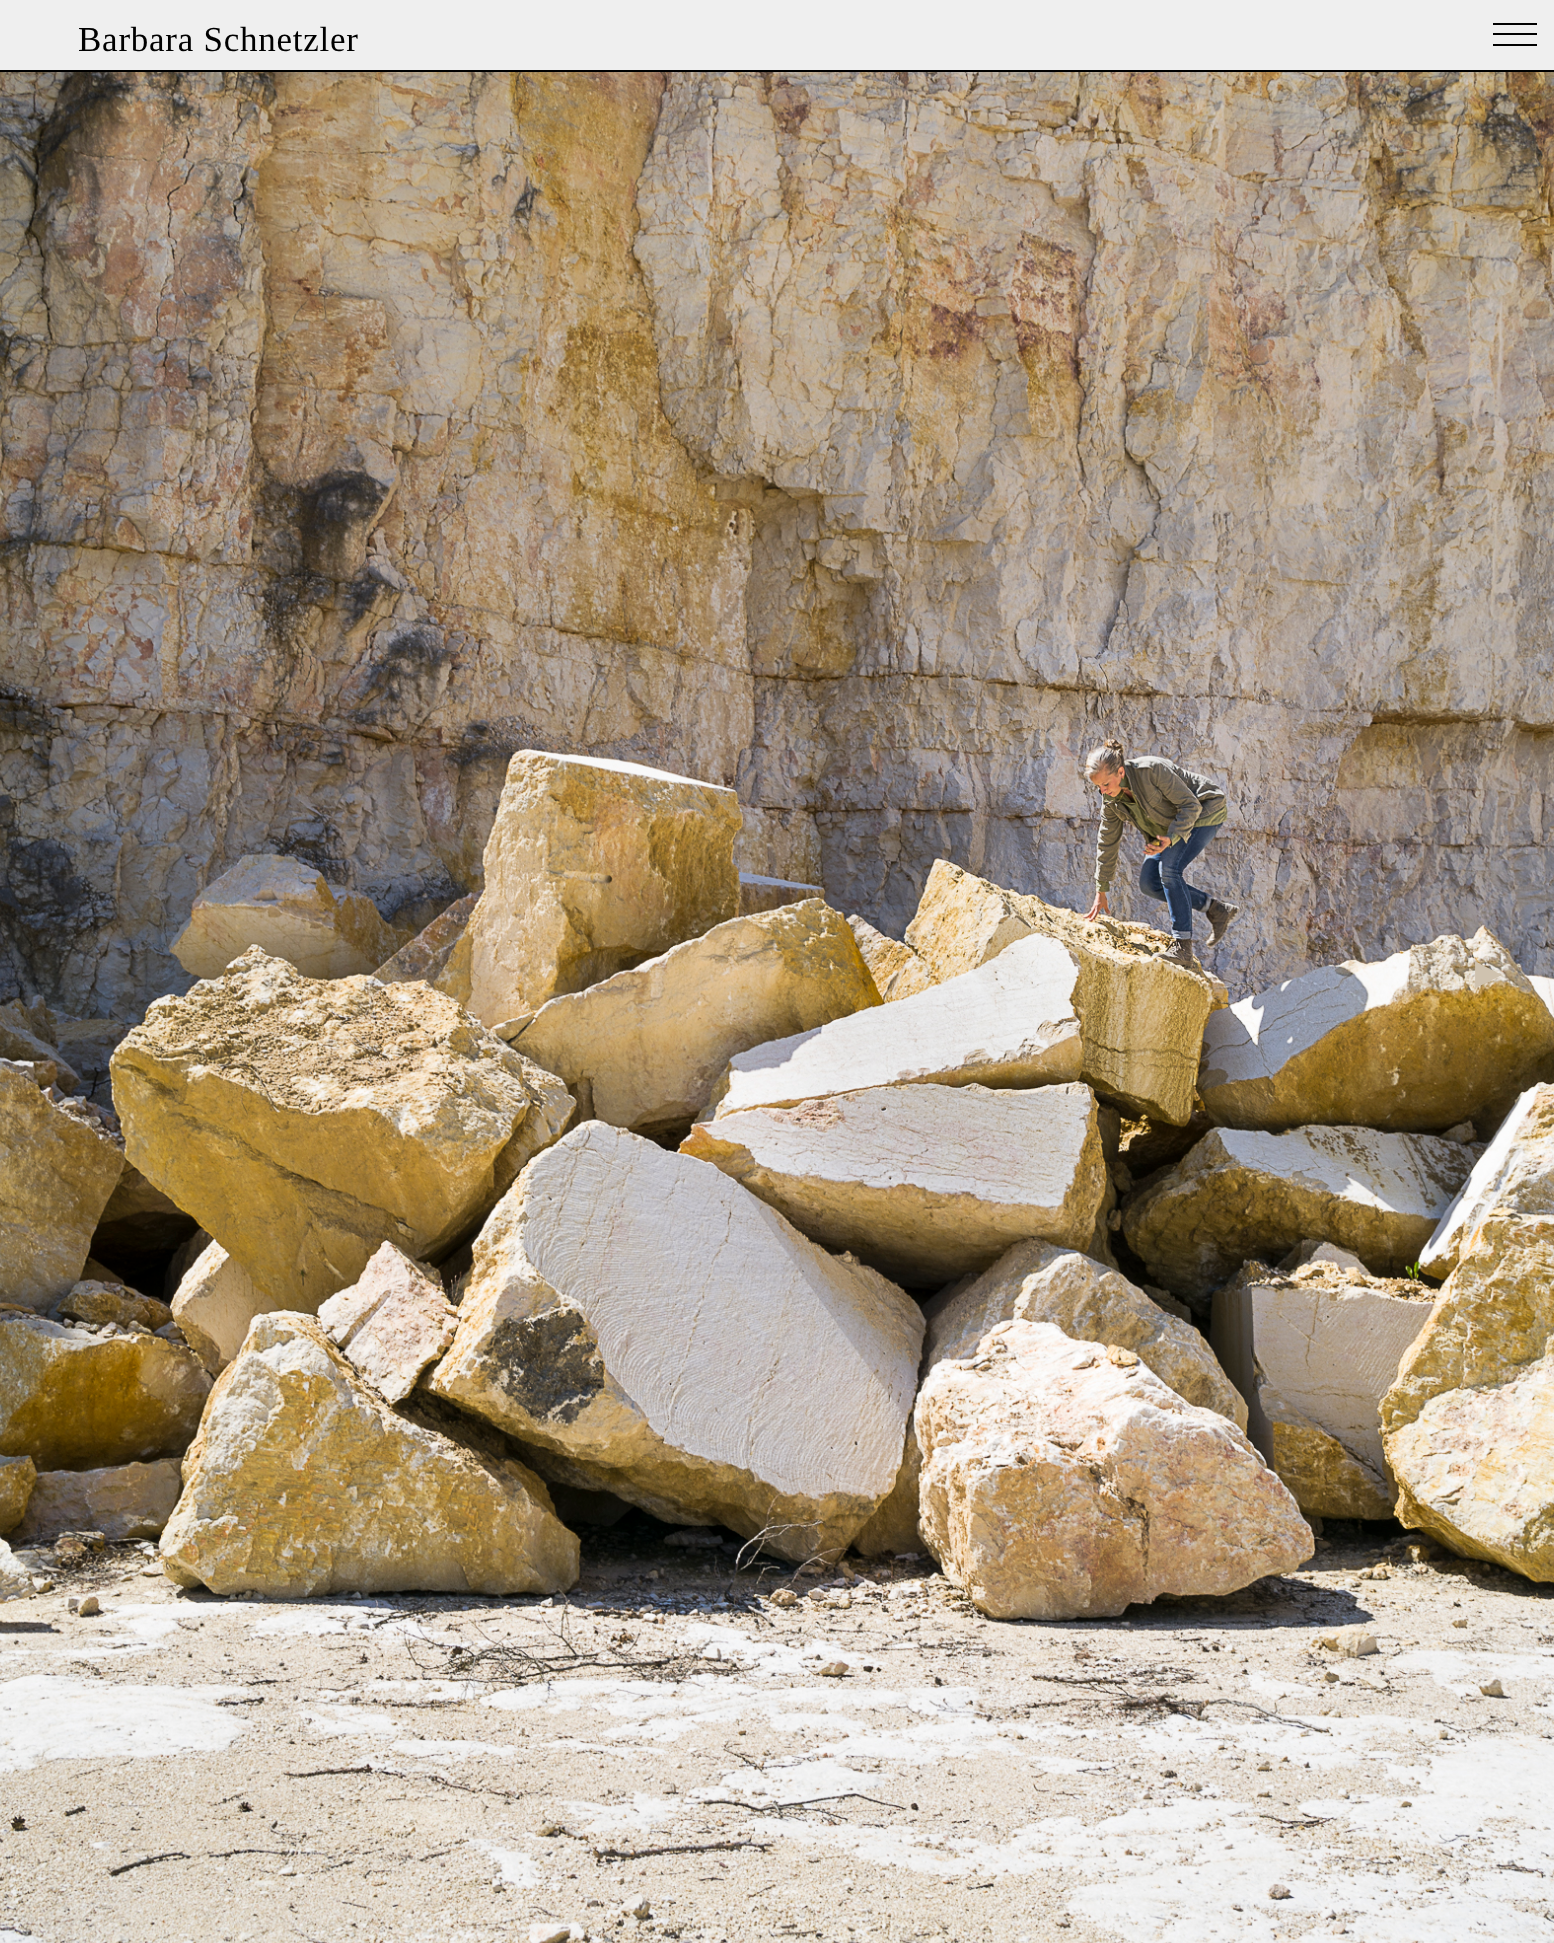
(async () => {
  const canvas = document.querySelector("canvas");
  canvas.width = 1554;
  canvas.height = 1943;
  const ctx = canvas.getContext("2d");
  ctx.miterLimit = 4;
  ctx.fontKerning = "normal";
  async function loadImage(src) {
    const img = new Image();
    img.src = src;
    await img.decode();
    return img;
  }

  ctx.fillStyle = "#ffffff";
  ctx.fillRect(0, 0, 1554, 1943);
  ctx.drawImage(await loadImage("img/1.png"), 0, 72, 1554, 1871);
  for (const [x, y, w, h, color] of [
    [0, 0, 1554, 70, "#efefef"],
    [0, 70, 1554, 2, "#000000"],
    [1493, 33, 44, 2, "#000000"],
    [1493, 23, 44, 2, "#000000"],
    [1493, 44, 44, 2, "#000000"],
  ]) {
    ctx.fillStyle = color;
    ctx.fillRect(x, y, w, h);
  }
  ctx.letterSpacing = "0.75px";
  ctx.font = "35px Liberation Serif";
  ctx.fillText("Barbara Schnetzler", 78, 51);
  ctx.letterSpacing = "0px";
  ctx.font = "35px DejaVu Sans";
  ctx.fillStyle = "#cfc2af";
  ctx.fillText("▶", 1475, 984);
})();
